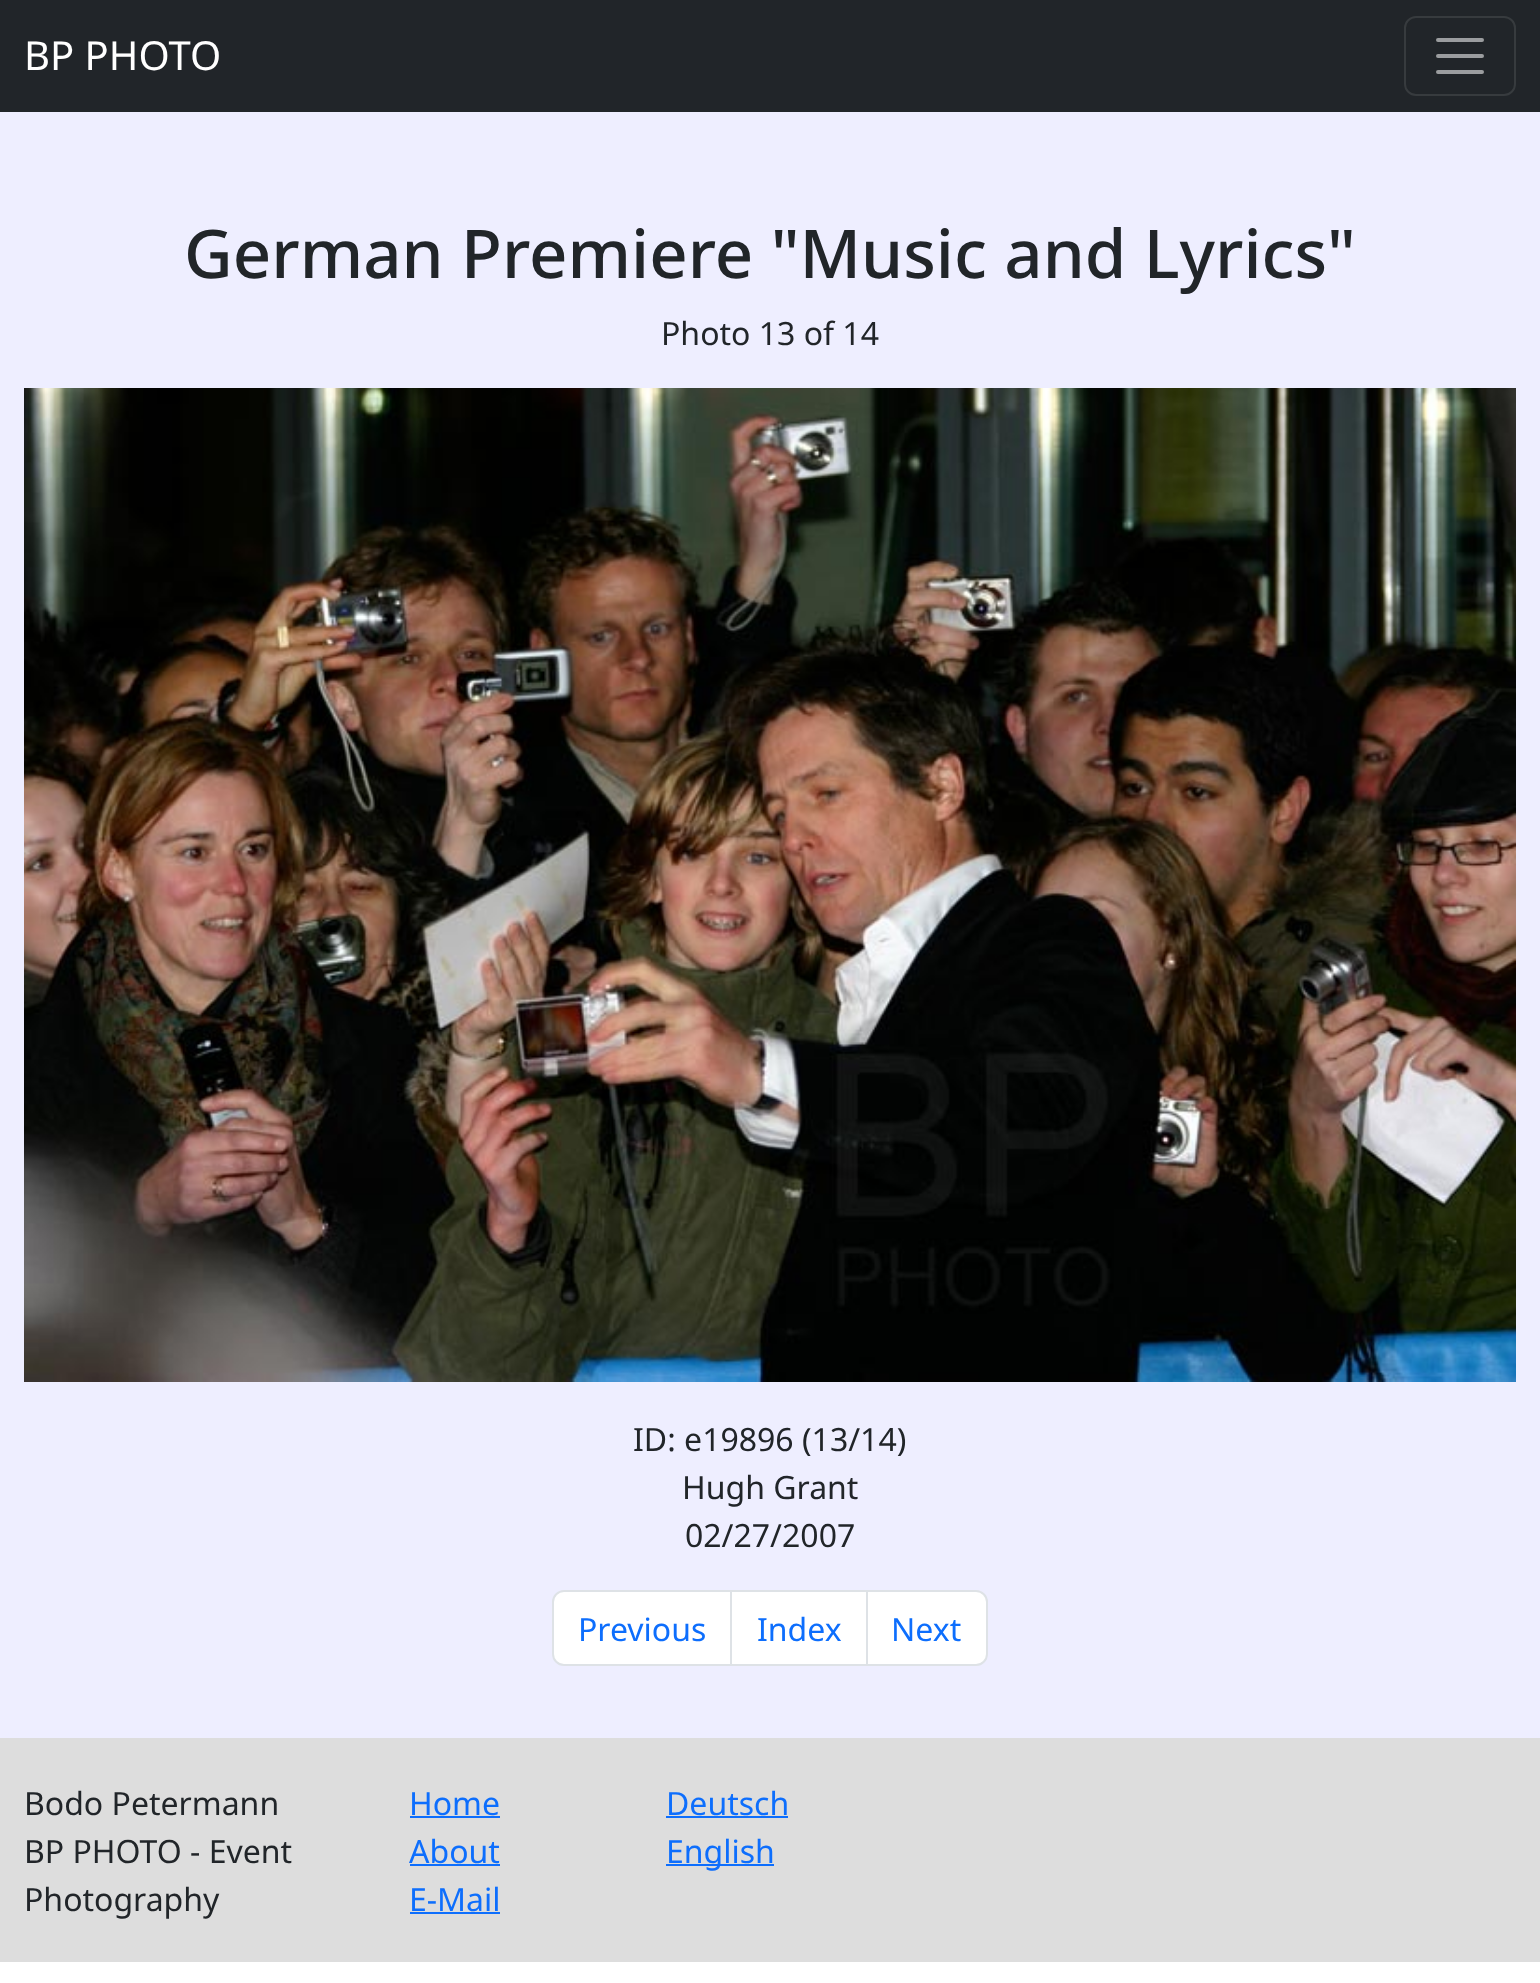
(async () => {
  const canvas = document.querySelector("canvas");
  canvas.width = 1540;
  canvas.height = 1983;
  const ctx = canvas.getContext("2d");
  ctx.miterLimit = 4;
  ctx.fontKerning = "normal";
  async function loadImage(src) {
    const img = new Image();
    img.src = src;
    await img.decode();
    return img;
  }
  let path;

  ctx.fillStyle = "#ffffff";
  ctx.fillRect(0, 0, 1540, 1983);
  ctx.fillStyle = "#212529";
  ctx.fillRect(0, 0, 1540, 112);
  ctx.beginPath();
  ctx.roundRect(1405, 17, 110, 78, 11);
  ctx.strokeStyle = "#373b3e";
  ctx.lineWidth = 2;
  ctx.stroke();
  path = new Path2D("M1438 40H1482M1438 56H1482M1438 72H1482");
  ctx.strokeStyle = "#9b9d9f";
  ctx.lineWidth = 4;
  ctx.lineCap = "round";
  ctx.stroke(path);
  ctx.fillStyle = "#eeeeff";
  ctx.fillRect(0, 112, 1540, 1626);
  ctx.drawImage(await loadImage("img/1.png"), 24, 388, 1492, 994);
  ctx.fillStyle = "#ffffff";
  ctx.beginPath();
  ctx.roundRect(553, 1591, 178, 74, [11, 0, 0, 11]);
  ctx.fill();
  ctx.strokeStyle = "#dee2e6";
  ctx.lineWidth = 2;
  ctx.stroke();
  ctx.beginPath();
  ctx.rect(731, 1591, 136, 74);
  ctx.fill();
  ctx.stroke();
  ctx.beginPath();
  ctx.roundRect(867, 1591, 120, 74, [0, 11, 11, 0]);
  ctx.fill();
  ctx.stroke();
  for (const [x, y, w, h, color] of [
    [0, 1738, 1540, 224, "#dddddd"],
    [410, 1816, 90, 2, "#0d6efd"],
    [410, 1864, 90, 2, "#0d6efd"],
    [410, 1912, 90, 2, "#0d6efd"],
    [666, 1816, 122, 2, "#0d6efd"],
    [666, 1864, 108, 2, "#0d6efd"],
  ]) {
    ctx.fillStyle = color;
    ctx.fillRect(x, y, w, h);
  }
  ctx.font = "40px Noto Sans";
  ctx.fillStyle = "#ffffff";
  ctx.fillText("BP PHOTO", 24, 70);
  ctx.font = "500 67.1px Noto Sans";
  ctx.fillStyle = "#212529";
  ctx.fillText("German Premiere \"Music and Lyrics\"", 184, 278);
  ctx.font = "32px Noto Sans";
  for (const [text, x, y] of [
    ["Photo 13 of 14", 661, 345],
    ["ID: e19896 (13/14)", 633, 1451],
    ["Hugh Grant", 682, 1499],
    ["02/27/2007", 685, 1547],
  ]) {
    ctx.fillText(text, x, y);
  }
  ctx.fillStyle = "#0d6efd";
  for (const [text, x, y] of [
    ["Previous", 578, 1641],
    ["Index", 757, 1641],
    ["Next", 891, 1641],
  ]) {
    ctx.fillText(text, x, y);
  }
  ctx.fillStyle = "#212529";
  for (const [text, x, y] of [
    ["Bodo Petermann", 24, 1815],
    ["BP PHOTO - Event", 24, 1863],
    ["Photography", 24, 1911],
  ]) {
    ctx.fillText(text, x, y);
  }
  ctx.fillStyle = "#0d6efd";
  for (const [text, x, y] of [
    ["Home", 409, 1815],
    ["About", 409, 1863],
    ["E-Mail", 409, 1911],
    ["Deutsch", 666, 1815],
    ["English", 666, 1863],
  ]) {
    ctx.fillText(text, x, y);
  }
})();
